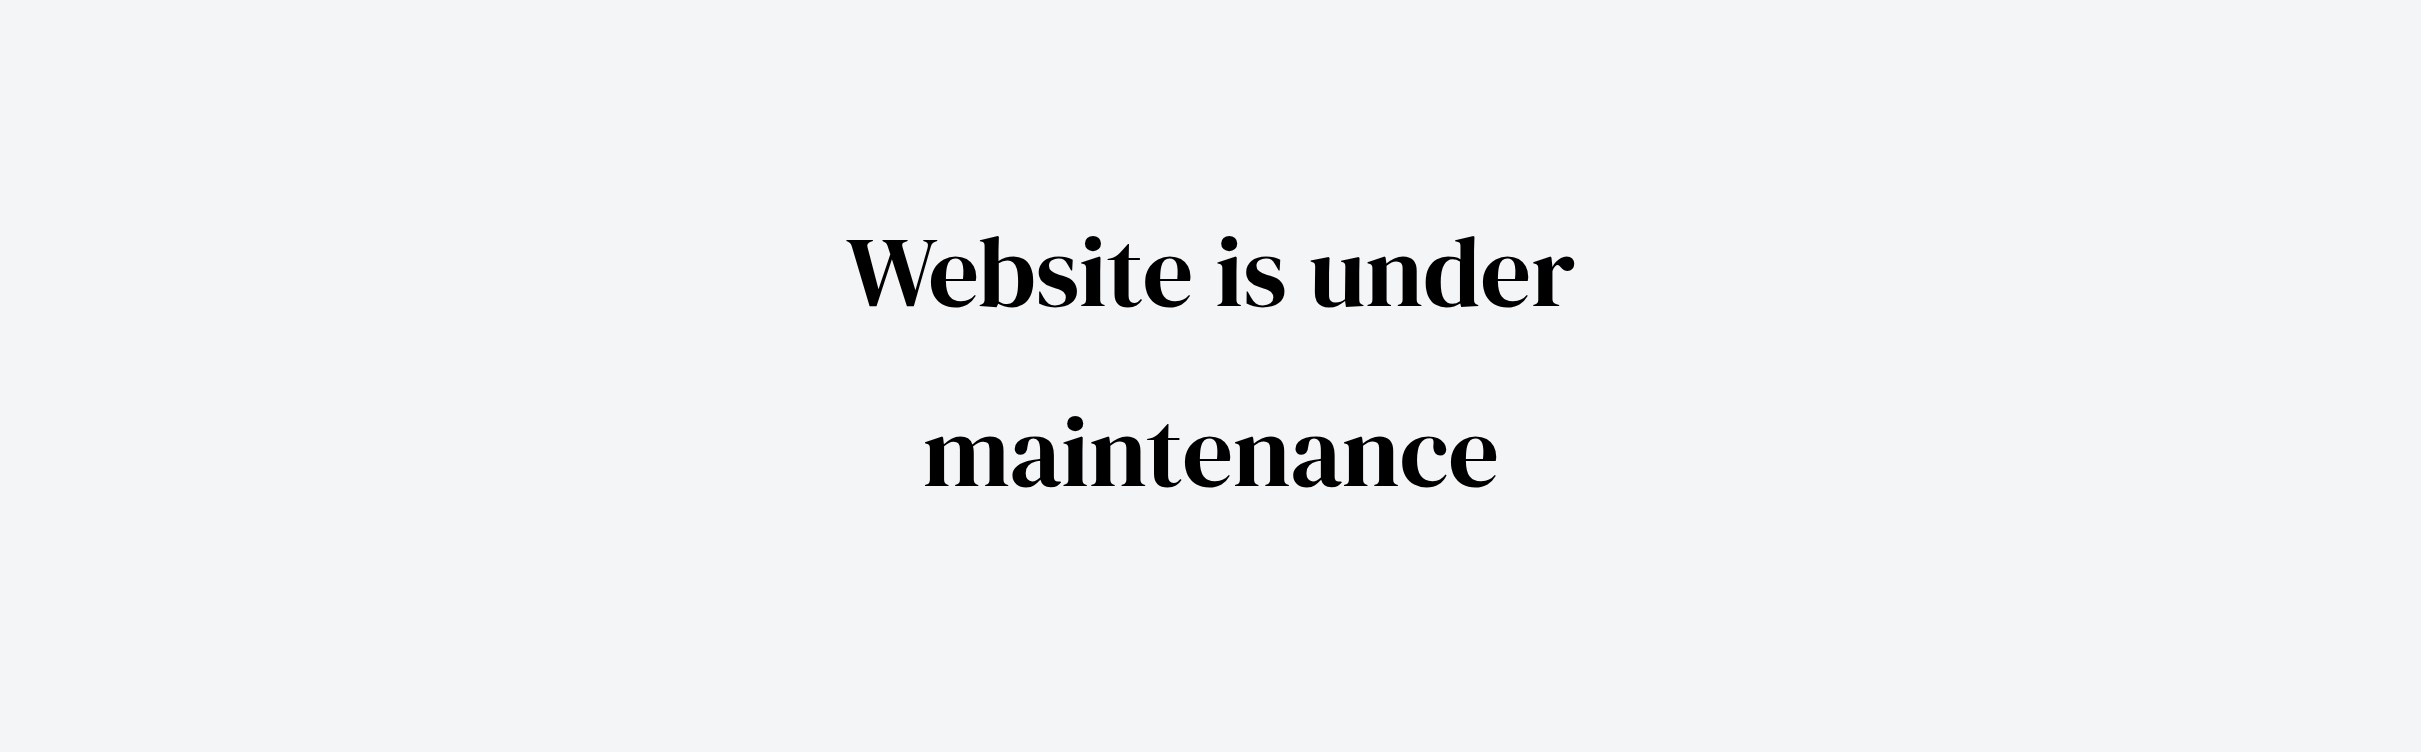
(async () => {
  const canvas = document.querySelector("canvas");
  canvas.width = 2421;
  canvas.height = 752;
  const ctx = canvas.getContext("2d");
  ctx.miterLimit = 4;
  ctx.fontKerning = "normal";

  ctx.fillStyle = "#f4f5f7";
  ctx.fillRect(0, 0, 2421, 752);
  ctx.font = "100px DM Serif Display";
  ctx.fillStyle = "#000000";
  ctx.fillText("Website is under", 846, 306);
  ctx.fillText("maintenance", 923, 486);
})();
